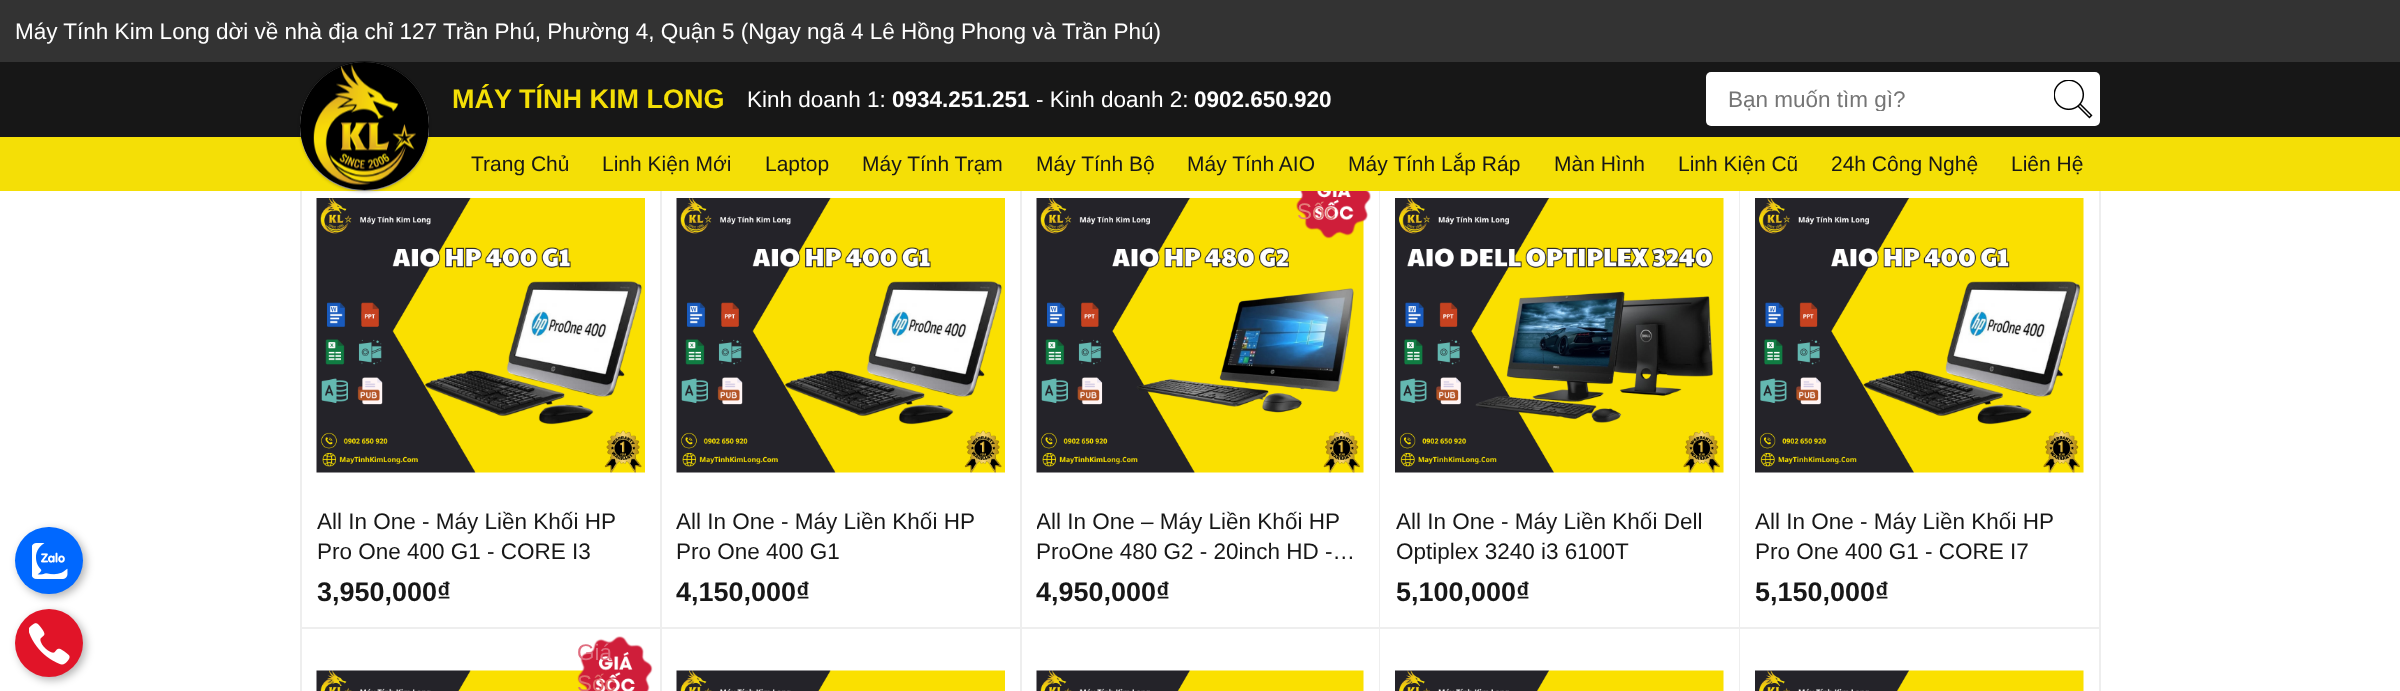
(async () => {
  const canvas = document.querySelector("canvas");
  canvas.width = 2400;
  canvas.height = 691;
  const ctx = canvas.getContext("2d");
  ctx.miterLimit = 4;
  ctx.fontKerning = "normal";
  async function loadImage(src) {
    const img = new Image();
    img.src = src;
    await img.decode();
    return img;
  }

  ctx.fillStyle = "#ffffff";
  ctx.fillRect(0, 0, 2400, 691);
  for (const [x, y, w, h, color] of [
    [0, 62, 2400, 75, "#171717"],
    [0, 0, 2400, 62, "#333333"],
    [0, 137, 2400, 54, "#f4df06"],
    [300, 191, 2, 500, "#eeeeee"],
  ]) {
    ctx.fillStyle = color;
    ctx.fillRect(x, y, w, h);
  }
  ctx.fillStyle = "rgba(0, 0, 0, 0.2)";
  ctx.filter = "blur(1.5px)";
  ctx.beginPath();
  ctx.roundRect(300, 63, 129, 129, 64.5);
  ctx.fill();
  ctx.filter = "none";
  ctx.fillStyle = "#ffffff";
  ctx.beginPath();
  ctx.arc(364.5, 126.5, 64.5, 0, Math.PI * 2);
  ctx.fill();
  ctx.drawImage(await loadImage("img/1.png"), 300, 61, 129, 130);
  ctx.beginPath();
  ctx.roundRect(1706, 72, 340, 54, [5, 0, 0, 5]);
  ctx.fill();
  ctx.beginPath();
  ctx.roundRect(2046, 72, 54, 54, [0, 5, 5, 0]);
  ctx.fill();
  ctx.drawImage(await loadImage("img/2.png"), 2054, 80, 39, 39);
  ctx.fillStyle = "rgba(0, 0, 0, 0.3)";
  ctx.filter = "blur(4px)";
  ctx.beginPath();
  ctx.roundRect(18, 530, 68, 67, 33.5);
  ctx.fill();
  ctx.filter = "none";
  ctx.fillStyle = "#0068ff";
  ctx.beginPath();
  ctx.roundRect(15, 527, 68, 67, 33.5);
  ctx.fill();
  ctx.drawImage(await loadImage("img/3.png"), 32, 543, 36, 36);
  ctx.fillStyle = "#eeeeee";
  ctx.fillRect(660, 191, 2, 500);
  ctx.fillRect(302, 627, 360, 2);
  ctx.drawImage(await loadImage("img/4.png"), 316, 198, 329, 275);
  ctx.fillRect(1020, 191, 2, 500);
  ctx.fillRect(662, 627, 360, 2);
  ctx.drawImage(await loadImage("img/4.png"), 676, 198, 329, 275);
  ctx.fillRect(1379, 191, 1, 500);
  ctx.fillRect(1022, 627, 358, 2);
  ctx.drawImage(await loadImage("img/6.png"), 1036, 198, 328, 275);
  ctx.drawImage(await loadImage("img/5.png"), 1296, 191, 75, 48);
  ctx.fillRect(1739, 191, 1, 500);
  ctx.fillRect(1380, 627, 360, 2);
  ctx.drawImage(await loadImage("img/7.png"), 1395, 198, 329, 275);
  ctx.fillRect(2099, 191, 2, 500);
  ctx.fillRect(1740, 627, 360, 2);
  ctx.drawImage(await loadImage("img/8.png"), 1755, 198, 329, 275);
  ctx.drawImage(await loadImage("img/9.png"), 316, 670, 273, 21);
  ctx.drawImage(await loadImage("img/10.png"), 577, 636, 76, 55);
  ctx.drawImage(await loadImage("img/11.png"), 676, 670, 329, 21);
  ctx.drawImage(await loadImage("img/12.png"), 1036, 670, 328, 21);
  ctx.drawImage(await loadImage("img/13.png"), 1395, 670, 329, 21);
  ctx.drawImage(await loadImage("img/13.png"), 1755, 670, 329, 21);
  ctx.fillStyle = "rgba(0, 0, 0, 0.3)";
  ctx.filter = "blur(4px)";
  ctx.beginPath();
  ctx.roundRect(18, 612, 68, 68, 34);
  ctx.fill();
  ctx.filter = "none";
  ctx.fillStyle = "#e11428";
  ctx.beginPath();
  ctx.arc(49, 643, 34, 0, Math.PI * 2);
  ctx.fill();
  ctx.drawImage(await loadImage("img/14.png"), 29, 623, 41, 42);
  ctx.font = "22.5px Liberation Sans";
  ctx.fillStyle = "#ffffff";
  ctx.fillText("Máy Tính Kim Long dời về nhà địa chỉ 127 Trần Phú, Phường 4, Quận 5 (Ngay ngã 4 Lê Hồng Phong và Trần Phú)", 15, 39);
  ctx.font = "bold 27px Liberation Sans";
  ctx.fillStyle = "#f4df06";
  ctx.fillText("MÁY TÍNH KIM LONG", 452, 108);
  ctx.font = "22.5px Liberation Sans";
  ctx.fillStyle = "#ffffff";
  ctx.fillText("Kinh doanh 1:", 747, 107);
  ctx.font = "bold 22.5px Liberation Sans";
  ctx.fillText("0934.251.251", 892, 107);
  ctx.font = "22.5px Liberation Sans";
  ctx.fillText("- Kinh doanh 2:", 1036, 107);
  ctx.font = "bold 22.5px Liberation Sans";
  ctx.fillText("0902.650.920", 1194, 107);
  ctx.save();
  ctx.beginPath();
  ctx.rect(1728, 86, 315, 25);
  ctx.clip();
  ctx.font = "22.5px Liberation Sans";
  ctx.fillStyle = "#757575";
  ctx.fillText("Bạn muốn tìm gì?", 1728, 107);
  ctx.restore();
  ctx.font = "21px Liberation Sans";
  ctx.fillStyle = "#171717";
  for (const [text, x, y] of [
    ["Trang Chủ", 471, 171],
    ["Linh Kiện Mới", 602, 171],
    ["Laptop", 765, 171],
    ["Máy Tính Trạm", 862, 171],
    ["Máy Tính Bộ", 1036, 171],
    ["Máy Tính AIO", 1187, 171],
    ["Máy Tính Lắp Ráp", 1348, 171],
    ["Màn Hình", 1554, 171],
    ["Linh Kiện Cũ", 1678, 171],
    ["24h Công Nghệ", 1831, 171],
    ["Liên Hệ", 2011, 171],
  ]) {
    ctx.fillText(text, x, y);
  }
  ctx.font = "22.5px Liberation Sans";
  ctx.fillText("All In One - Máy Liền Khối HP", 317, 529);
  ctx.fillText("Pro One 400 G1 - CORE I3", 317, 559);
  ctx.font = "bold 27px Liberation Sans";
  ctx.fillText("3,950,000₫", 317, 601);
  ctx.font = "22.5px Liberation Sans";
  ctx.fillText("All In One - Máy Liền Khối HP", 676, 529);
  ctx.fillText("Pro One 400 G1", 676, 559);
  ctx.font = "bold 27px Liberation Sans";
  ctx.fillText("4,150,000₫", 676, 601);
  ctx.font = "22.5px Liberation Sans";
  ctx.fillStyle = "#e47f7a";
  ctx.fillText("Sốc", 1297, 219);
  ctx.save();
  ctx.beginPath();
  ctx.rect(1037, 507, 327, 60);
  ctx.clip();
  ctx.fillStyle = "#171717";
  ctx.fillText("All In One – Máy Liền Khối HP", 1036, 529);
  ctx.restore();
  ctx.fillStyle = "#171717";
  ctx.fillText("ProOne 480 G2 - 20inch HD -…", 1036, 559);
  ctx.font = "bold 27px Liberation Sans";
  ctx.fillText("4,950,000₫", 1036, 601);
  ctx.font = "22.5px Liberation Sans";
  ctx.fillText("All In One - Máy Liền Khối Dell", 1396, 529);
  ctx.fillText("Optiplex 3240 i3 6100T", 1396, 559);
  ctx.font = "bold 27px Liberation Sans";
  ctx.fillText("5,100,000₫", 1396, 601);
  ctx.font = "22.5px Liberation Sans";
  ctx.fillText("All In One - Máy Liền Khối HP", 1755, 529);
  ctx.fillText("Pro One 400 G1 - CORE I7", 1755, 559);
  ctx.font = "bold 27px Liberation Sans";
  ctx.fillText("5,150,000₫", 1755, 601);
  ctx.font = "22.5px Liberation Sans";
  ctx.fillStyle = "#e06e80";
  ctx.fillText("Giá", 577, 660);
  ctx.fillStyle = "#e06d6c";
  ctx.fillText("Sốc", 577, 691);
})();
